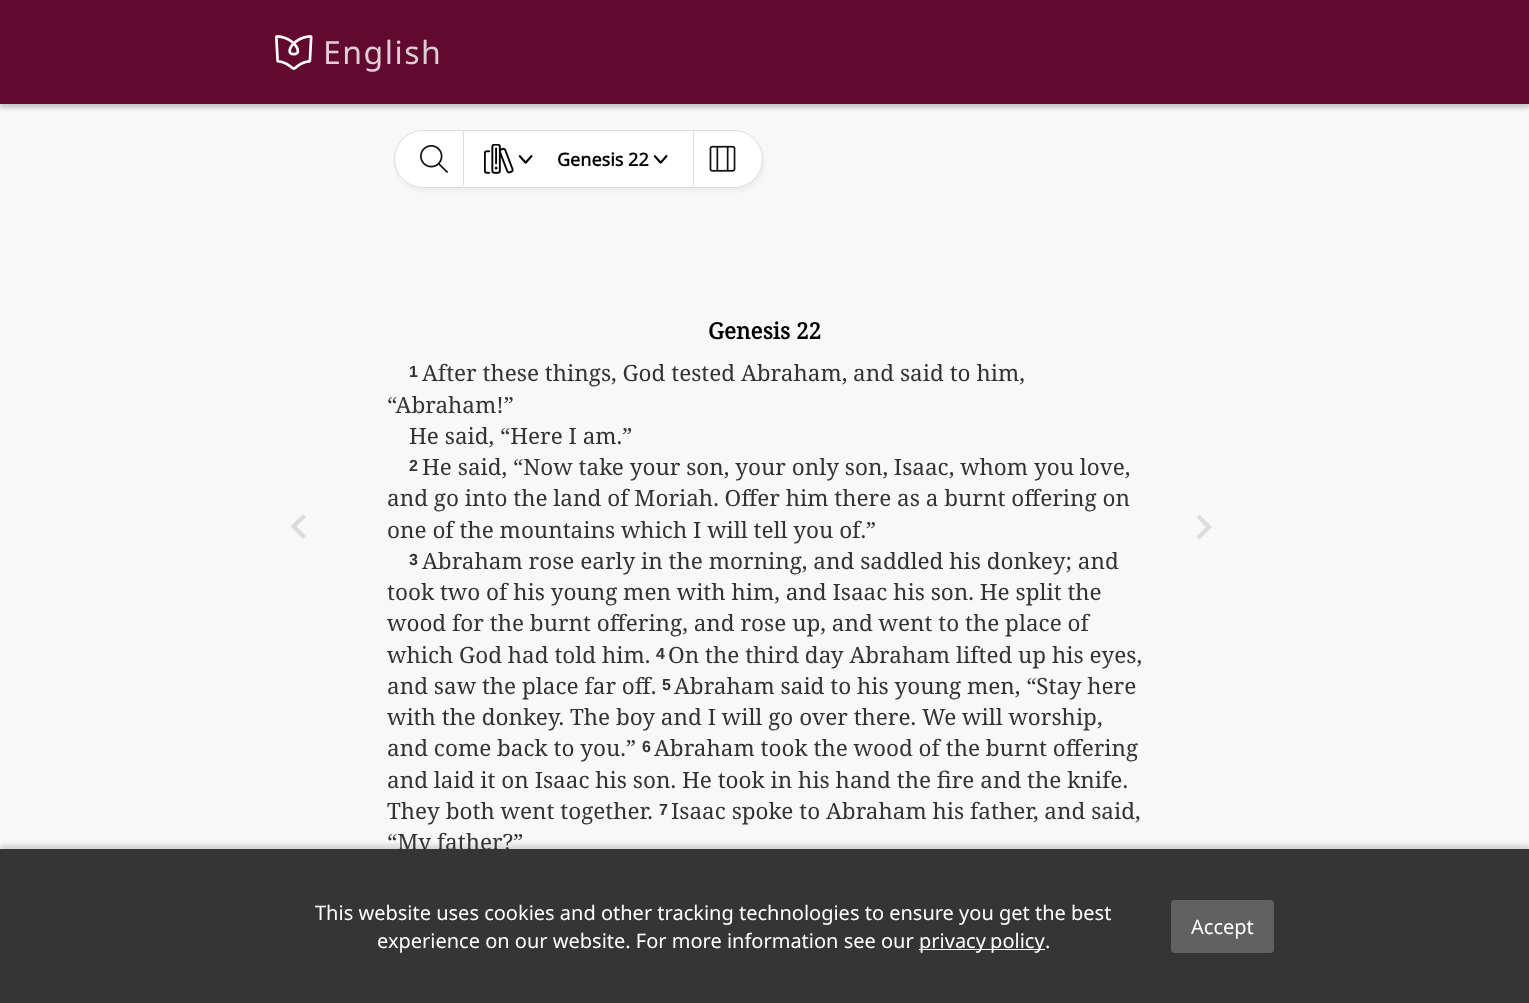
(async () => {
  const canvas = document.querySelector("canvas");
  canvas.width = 1529;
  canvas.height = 1003;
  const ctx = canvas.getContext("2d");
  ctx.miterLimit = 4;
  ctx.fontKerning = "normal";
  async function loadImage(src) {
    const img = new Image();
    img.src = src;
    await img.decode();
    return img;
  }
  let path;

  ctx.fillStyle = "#f8f8f8";
  ctx.fillRect(0, 0, 1529, 1003);
  ctx.fillStyle = "rgba(0, 0, 0, 0.2)";
  ctx.filter = "blur(2px)";
  ctx.beginPath();
  ctx.rect(0, 4, 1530, 104);
  ctx.fill();
  ctx.filter = "none";
  ctx.fillStyle = "#61092f";
  ctx.fillRect(0, 0, 1529, 104);
  ctx.drawImage(await loadImage("img/1.png"), 275, 35, 38, 35);
  ctx.fillStyle = "rgba(0, 0, 0, 0.05)";
  ctx.filter = "blur(2px)";
  ctx.beginPath();
  ctx.roundRect(395, 134, 369, 57, 28.5);
  ctx.fill();
  ctx.filter = "none";
  ctx.fillStyle = "#ffffff";
  ctx.beginPath();
  ctx.roundRect(394.5, 130.5, 368, 57, 28.5);
  ctx.fill();
  ctx.strokeStyle = "#dcdcdc";
  ctx.stroke();
  ctx.fillStyle = "#dcdcdc";
  ctx.fillRect(463, 131, 1, 55);
  ctx.drawImage(await loadImage("img/2.png"), 420, 145, 28, 28);
  ctx.drawImage(await loadImage("img/3.png"), 484, 144, 30, 30);
  ctx.drawImage(await loadImage("img/4.png"), 518, 155, 15, 9);
  ctx.drawImage(await loadImage("img/4.png"), 653, 155, 15, 9);
  ctx.fillRect(693, 131, 1, 55);
  ctx.drawImage(await loadImage("img/5.png"), 709, 145, 27, 27);
  path = new Path2D("M306 536L296.5 526.5L306 517L303 514L290.5 526.5L303 539Z");
  ctx.fill(path);
  path = new Path2D("M1196.5 536.5L1206 527L1196.5 517.5L1199.5 514.5L1212 527L1199.5 539.5Z");
  ctx.fill(path);
  ctx.fillStyle = "rgba(0, 0, 0, 0.15)";
  ctx.filter = "blur(2.5px)";
  ctx.beginPath();
  ctx.rect(0, 845, 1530, 155);
  ctx.fill();
  ctx.filter = "none";
  ctx.letterSpacing = "1.5px";
  ctx.font = "32px Noto Sans";
  ctx.fillStyle = "#dfced5";
  ctx.fillText("English", 323, 64);
  ctx.letterSpacing = "0px";
  ctx.font = "bold 18px Noto Sans";
  ctx.fillStyle = "#000000";
  ctx.fillText("Genesis 22", 557, 166);
  ctx.font = "bold 22.5px Noto Serif";
  ctx.fillText("Genesis 22", 708, 339);
  ctx.font = "bold 16px Liberation Sans";
  ctx.fillStyle = "#333333";
  ctx.fillText("1", 409, 377);
  ctx.font = "22.5px Noto Serif";
  for (const [text, x, y] of [
    ["After these things, God tested Abraham, and said to him,", 422, 381],
    ["“Abraham!”", 387, 413],
    ["He said, “Here I am.”", 409, 444],
  ]) {
    ctx.fillText(text, x, y);
  }
  ctx.font = "bold 16px Liberation Sans";
  ctx.fillText("2", 409, 471);
  ctx.font = "22.5px Noto Serif";
  for (const [text, x, y] of [
    ["He said, “Now take your son, your only son, Isaac, whom you love,", 422, 475],
    ["and go into the land of Moriah. Offer him there as a burnt offering on", 387, 506],
    ["one of the mountains which I will tell you of.”", 387, 538],
  ]) {
    ctx.fillText(text, x, y);
  }
  ctx.font = "bold 16px Liberation Sans";
  ctx.fillText("3", 409, 565);
  ctx.font = "22.5px Noto Serif";
  for (const [text, x, y] of [
    ["Abraham rose early in the morning, and saddled his donkey; and", 422, 569],
    ["took two of his young men with him, and Isaac his son. He split the", 387, 600],
    ["wood for the burnt offering, and rose up, and went to the place of", 387, 631],
    ["which God had told him.", 387, 663],
  ]) {
    ctx.fillText(text, x, y);
  }
  ctx.font = "bold 16px Liberation Sans";
  ctx.fillText("4", 656, 659);
  ctx.font = "22.5px Noto Serif";
  ctx.fillText("On the third day Abraham lifted up his eyes,", 668, 663);
  ctx.fillText("and saw the place far off.", 387, 694);
  ctx.font = "bold 16px Liberation Sans";
  ctx.fillText("5", 662, 690);
  ctx.font = "22.5px Noto Serif";
  for (const [text, x, y] of [
    ["Abraham said to his young men, “Stay here", 674, 694],
    ["with the donkey. The boy and I will go over there. We will worship,", 387, 725],
    ["and come back to you.”", 387, 756],
  ]) {
    ctx.fillText(text, x, y);
  }
  ctx.font = "bold 16px Liberation Sans";
  ctx.fillText("6", 642, 752);
  ctx.font = "22.5px Noto Serif";
  for (const [text, x, y] of [
    ["Abraham took the wood of the burnt offering", 654, 756],
    ["and laid it on Isaac his son. He took in his hand the fire and the knife.", 387, 788],
    ["They both went together.", 387, 819],
  ]) {
    ctx.fillText(text, x, y);
  }
  ctx.font = "bold 16px Liberation Sans";
  ctx.fillText("7", 659, 815);
  ctx.font = "22.5px Noto Serif";
  ctx.fillText("Isaac spoke to Abraham his father, and said,", 671, 819);
  ctx.fillText("“My father?”", 387, 850);
  ctx.fillStyle = "#353535";
  ctx.fillRect(0, 849, 1529, 154);
  ctx.font = "20px Noto Sans";
  ctx.fillStyle = "#ffffff";
  ctx.fillText("This website uses cookies and other tracking technologies to ensure you get the best", 315, 920);
  ctx.fillText("experience on our website. For more information see our", 377, 948);
  ctx.fillRect(919, 949, 126, 1);
  ctx.wordSpacing = "-1px";
  ctx.fillText("privacy policy", 919, 948);
  ctx.wordSpacing = "0px";
  ctx.fillText(".", 1045, 948);
  ctx.fillStyle = "#616161";
  ctx.beginPath();
  ctx.roundRect(1171, 900, 103, 53, 4);
  ctx.fill();
  ctx.fillStyle = "#ffffff";
  ctx.fillText("Accept", 1191, 934);
})();
